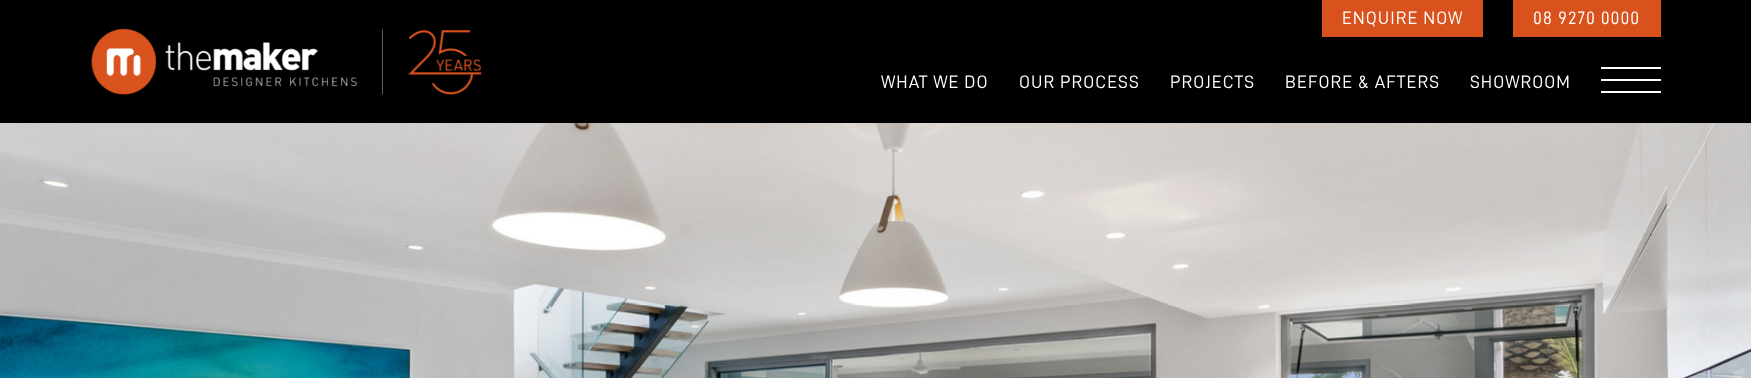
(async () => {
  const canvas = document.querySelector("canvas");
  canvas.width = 1751;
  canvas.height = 378;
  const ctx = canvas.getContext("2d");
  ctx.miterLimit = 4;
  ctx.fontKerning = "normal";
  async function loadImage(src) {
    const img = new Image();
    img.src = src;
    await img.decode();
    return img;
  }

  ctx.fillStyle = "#ffffff";
  ctx.fillRect(0, 0, 1751, 378);
  ctx.fillStyle = "#000000";
  ctx.fillRect(0, 0, 1751, 123);
  ctx.drawImage(await loadImage("img/1.png"), 91, 28, 391, 67);
  for (const [x, y, w, h, color] of [
    [1322, 0, 161, 37, "#d9521d"],
    [1513, 0, 148, 37, "#d9521d"],
    [1601, 67, 60, 2, "#ffffff"],
    [1601, 79, 60, 2, "#ffffff"],
    [1601, 91, 60, 2, "#ffffff"],
  ]) {
    ctx.fillStyle = color;
    ctx.fillRect(x, y, w, h);
  }
  ctx.drawImage(await loadImage("img/2.png"), 0, 123, 1751, 255);
  ctx.letterSpacing = "1px";
  ctx.font = "18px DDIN";
  for (const [text, x, y] of [
    ["ENQUIRE NOW", 1342, 24],
    ["08 9270 0000", 1533, 24],
    ["WHAT WE DO", 881, 88],
    ["OUR PROCESS", 1019, 88],
    ["PROJECTS", 1170, 88],
    ["BEFORE & AFTERS", 1285, 88],
    ["SHOWROOM", 1470, 88],
  ]) {
    ctx.fillText(text, x, y);
  }
})();
